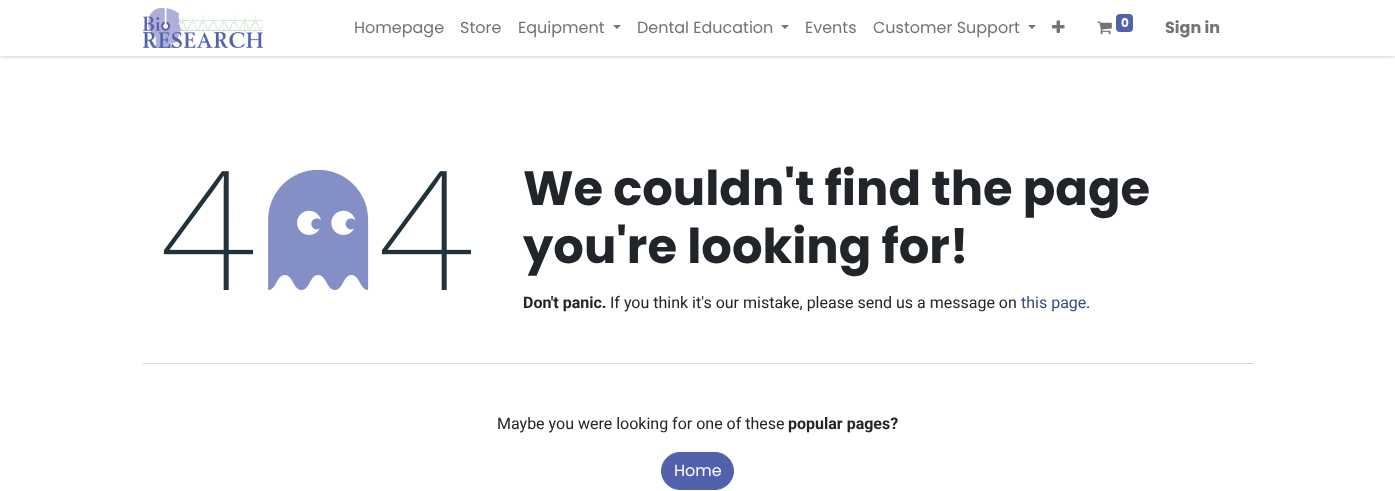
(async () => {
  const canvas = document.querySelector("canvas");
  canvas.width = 1395;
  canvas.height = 491;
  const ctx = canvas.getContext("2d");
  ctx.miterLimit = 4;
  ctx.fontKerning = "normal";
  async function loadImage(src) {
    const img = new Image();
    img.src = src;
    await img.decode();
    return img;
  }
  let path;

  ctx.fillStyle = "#ffffff";
  ctx.fillRect(0, 0, 1395, 491);
  ctx.save();
  ctx.beginPath();
  ctx.rect(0, 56, 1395, 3);
  ctx.clip();
  ctx.fillStyle = "rgba(0, 0, 0, 0.25)";
  ctx.filter = "blur(2.5px)";
  ctx.beginPath();
  ctx.rect(0, 0, 1395, 56);
  ctx.fill();
  ctx.filter = "none";
  ctx.restore();
  ctx.drawImage(await loadImage("img/1.png"), 143, 8, 120, 40);
  ctx.fillStyle = "#737373";
  path = new Path2D("M613 25H621L617 29Z");
  ctx.fill(path);
  path = new Path2D("M781 25H789L785 29Z");
  ctx.fill(path);
  path = new Path2D("M1028 25H1036L1032 29Z");
  ctx.fill(path);
  ctx.drawImage(await loadImage("img/2.png"), 1052, 20, 13, 13);
  ctx.drawImage(await loadImage("img/3.png"), 1097, 21, 15, 14);
  ctx.fillStyle = "#5161ac";
  ctx.beginPath();
  ctx.roundRect(1116, 14, 17, 18, 4);
  ctx.fill();
  ctx.drawImage(await loadImage("img/4.png"), 163, 170, 308, 120);
  ctx.fillStyle = "#ced4da";
  ctx.fillRect(143, 363, 1110, 1);
  ctx.fillStyle = "#5161ac";
  ctx.beginPath();
  ctx.roundRect(661.5, 452.5, 72, 37, 18.5);
  ctx.fill();
  ctx.strokeStyle = "#5161ac";
  ctx.stroke();
  ctx.font = "16px Poppins";
  ctx.fillStyle = "#737373";
  for (const [text, x, y] of [
    ["Homepage", 354, 33],
    ["Store", 460, 33],
    ["Equipment", 518, 33],
    ["Dental Education", 637, 33],
    ["Events", 805, 33],
    ["Customer Support", 873, 33],
  ]) {
    ctx.fillText(text, x, y);
  }
  ctx.font = "bold 12px Poppins";
  ctx.fillStyle = "#ffffff";
  ctx.fillText("0", 1121, 27);
  ctx.font = "bold 16px Poppins";
  ctx.fillStyle = "#737373";
  ctx.fillText("Sign in", 1165, 33);
  ctx.font = "bold 48px Poppins";
  ctx.fillStyle = "#212529";
  ctx.fillText("We couldn't find the page", 523, 205);
  ctx.fillText("you're looking for!", 523, 263);
  ctx.font = "bold 16px Roboto";
  ctx.fillText("Don't panic.", 523, 308);
  ctx.font = "16px Roboto";
  ctx.fillText("If you think it's our mistake, please send us a message on", 610, 308);
  ctx.fillStyle = "#3c487f";
  ctx.fillText("this page", 1021, 308);
  ctx.fillStyle = "#212529";
  ctx.fillText(".", 1086, 308);
  ctx.fillText("Maybe you were looking for one of these", 497, 429);
  ctx.font = "bold 16px Roboto";
  ctx.fillText("popular pages?", 788, 429);
  ctx.font = "16px Poppins";
  ctx.fillStyle = "#ffffff";
  ctx.fillText("Home", 674, 476);
})();
